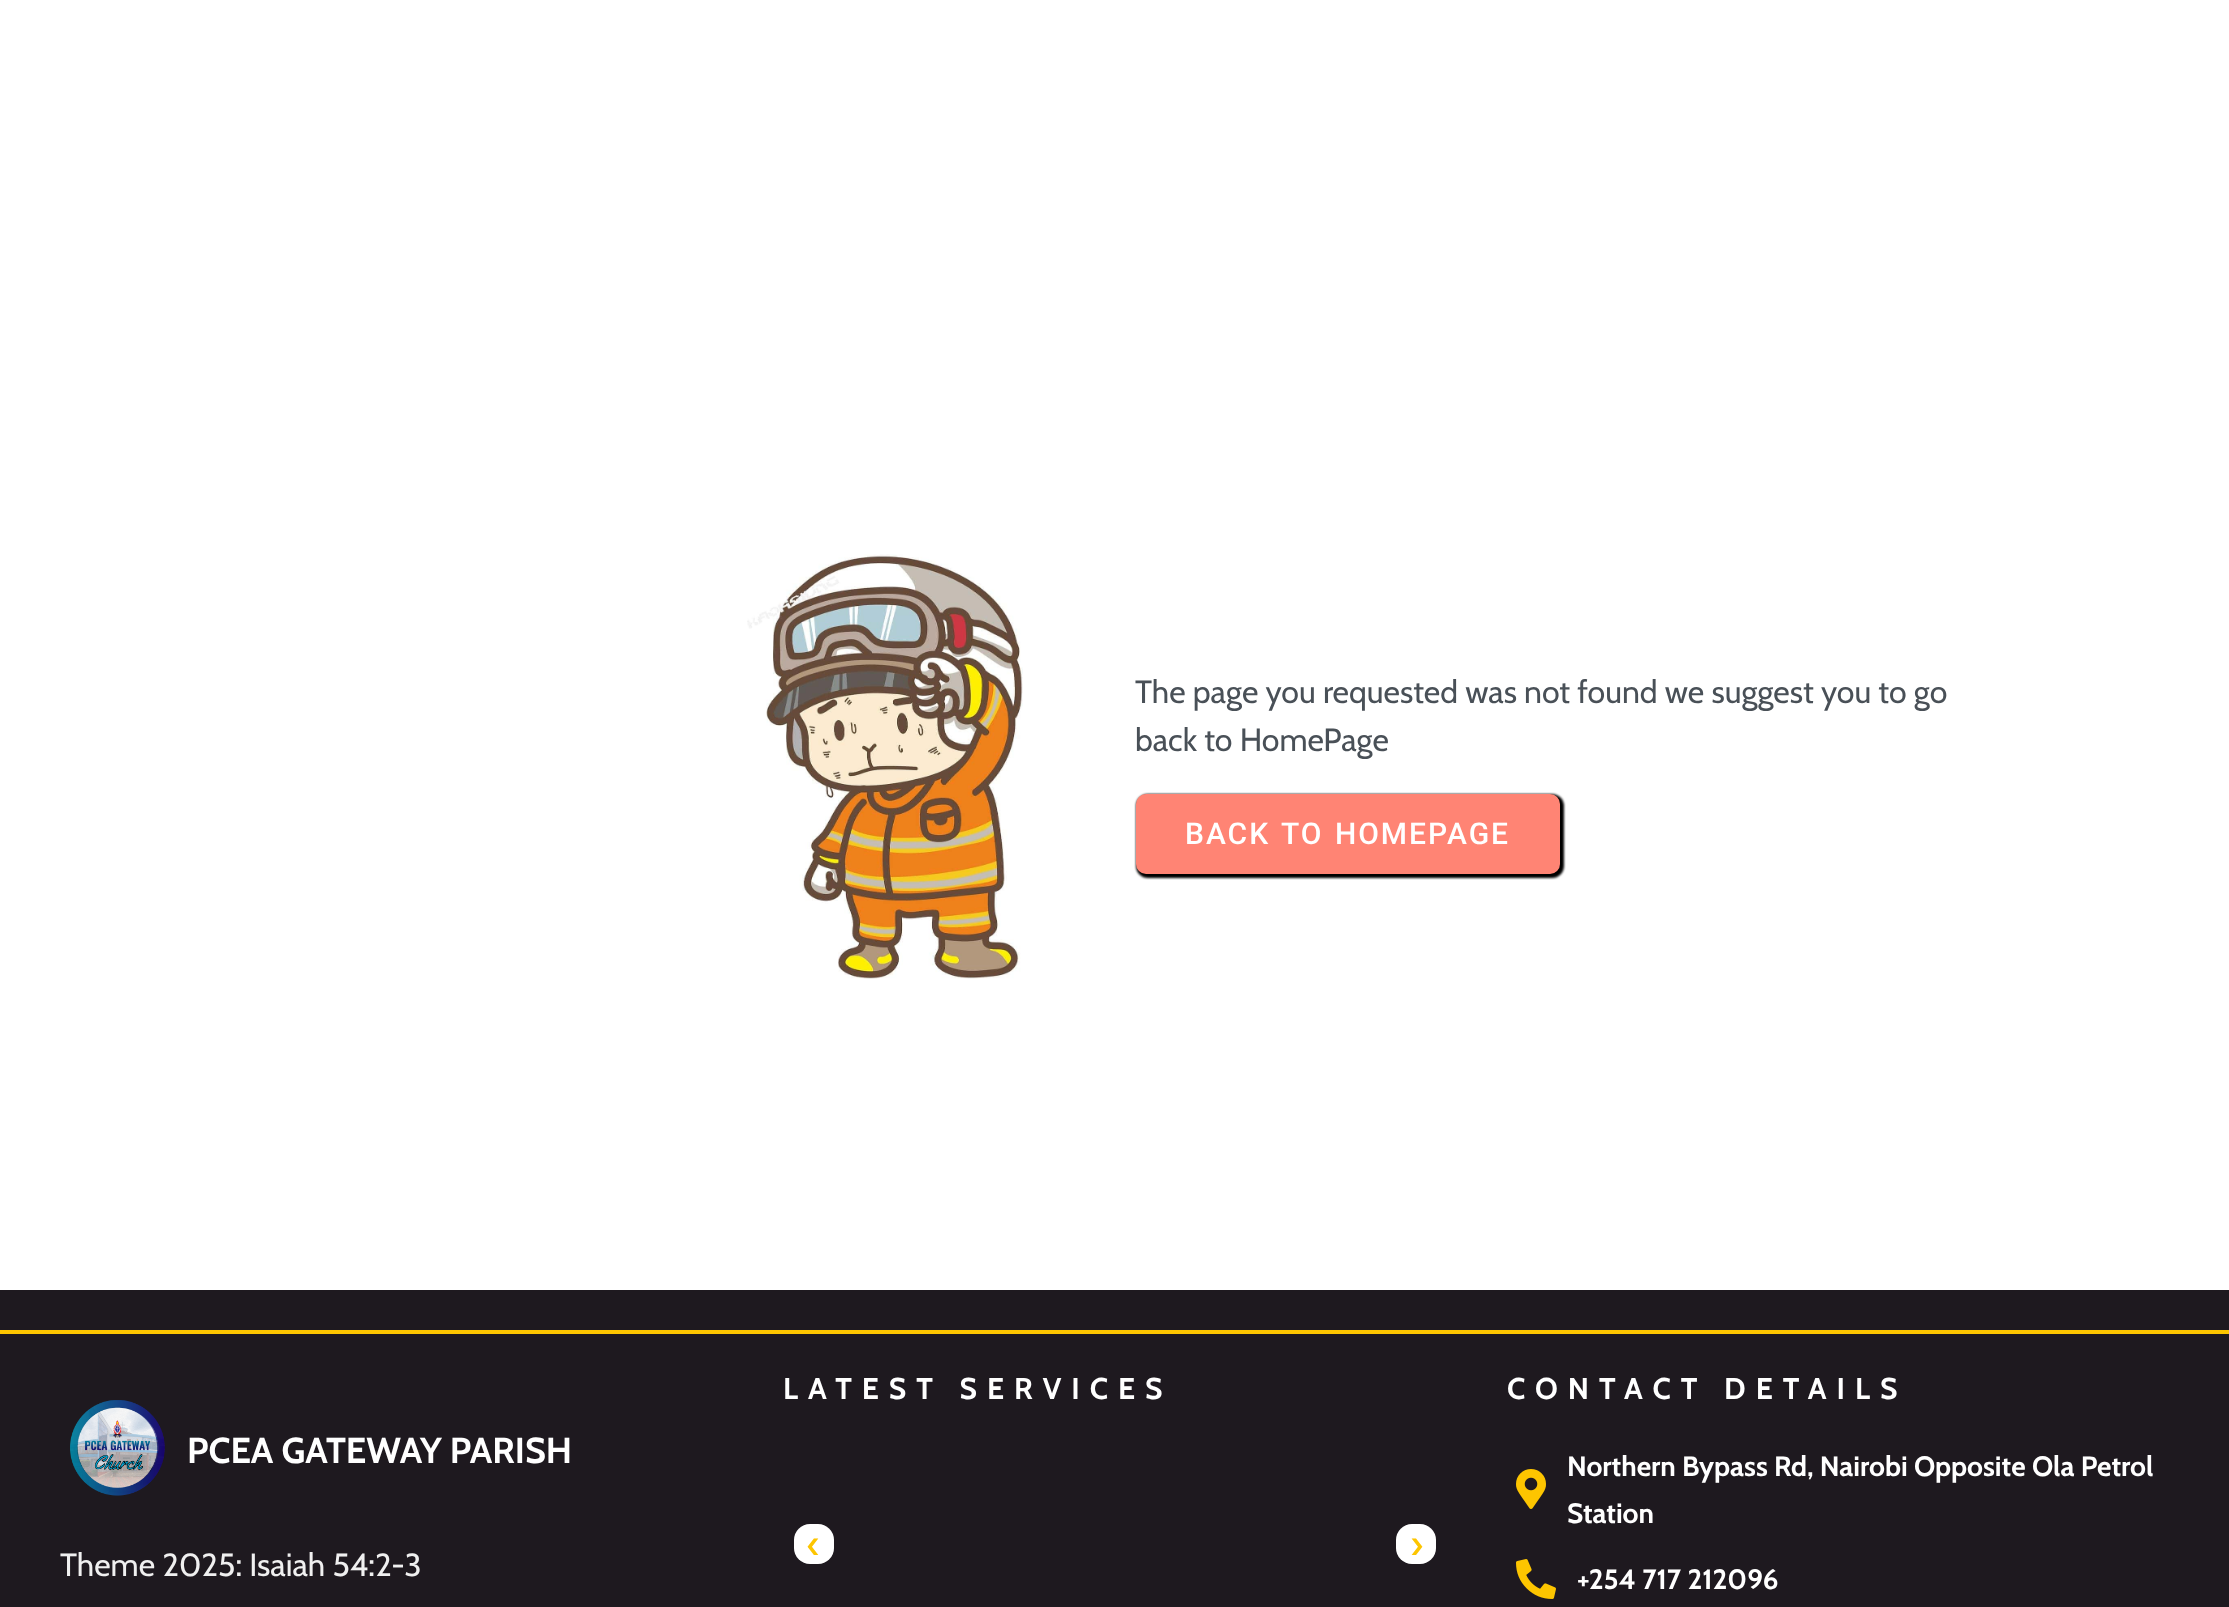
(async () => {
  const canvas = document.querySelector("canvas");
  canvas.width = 2229;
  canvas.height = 1607;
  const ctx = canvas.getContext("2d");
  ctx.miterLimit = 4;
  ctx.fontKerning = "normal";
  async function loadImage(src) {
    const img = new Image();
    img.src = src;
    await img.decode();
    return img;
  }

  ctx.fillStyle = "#ffffff";
  ctx.fillRect(0, 0, 2229, 1607);
  ctx.drawImage(await loadImage("img/1.png"), 747, 554, 276, 425);
  ctx.fillStyle = "#000000";
  ctx.filter = "blur(1px)";
  ctx.beginPath();
  ctx.roundRect(1136, 794, 428, 84, 12);
  ctx.fill();
  ctx.filter = "none";
  ctx.fillStyle = "#ff8474";
  ctx.beginPath();
  ctx.roundRect(1136, 794, 424, 80, 10);
  ctx.fill();
  ctx.fillStyle = "#1e191f";
  ctx.fillRect(0, 1290, 2229, 317);
  ctx.fillStyle = "#fdc500";
  ctx.fillRect(0, 1330, 2229, 4);
  ctx.drawImage(await loadImage("img/2.png"), 70, 1400, 95, 96);
  ctx.fillStyle = "#ffffff";
  ctx.beginPath();
  ctx.roundRect(794, 1524, 40, 40, 16);
  ctx.fill();
  ctx.beginPath();
  ctx.roundRect(1396, 1524, 40, 40, 16);
  ctx.fill();
  ctx.drawImage(await loadImage("img/3.png"), 1516, 1469, 30, 40);
  ctx.drawImage(await loadImage("img/4.png"), 1516, 1559, 40, 40);
  ctx.font = "32px Cabin";
  ctx.fillStyle = "#495057";
  ctx.fillText("The page you requested was not found we suggest you to go", 1135, 703);
  ctx.fillText("back to HomePage", 1135, 751);
  ctx.letterSpacing = "2px";
  ctx.wordSpacing = "2px";
  ctx.font = "500 30px Roboto";
  ctx.fillStyle = "#ffffff";
  ctx.fillText("BACK TO HOMEPAGE", 1185, 844);
  ctx.letterSpacing = "0px";
  ctx.wordSpacing = "0px";
  ctx.font = "bold 36px Cabin";
  ctx.fillText("PCEA GATEWAY PARISH", 187, 1463);
  ctx.font = "32px Cabin";
  ctx.fillStyle = "#f0f0f0";
  ctx.fillText("Theme 2025: Isaiah 54:2-3", 60, 1576);
  ctx.letterSpacing = "10px";
  ctx.font = "bold 30px Cabin";
  ctx.fillStyle = "#ffffff";
  ctx.fillText("LATEST SERVICES", 783, 1399);
  ctx.letterSpacing = "0px";
  ctx.font = "40px Cabin";
  ctx.fillStyle = "#fdc500";
  ctx.fillText("‹", 807, 1558);
  ctx.fillText("›", 1410, 1558);
  ctx.letterSpacing = "10px";
  ctx.font = "bold 30px Cabin";
  ctx.fillStyle = "#ffffff";
  ctx.fillText("CONTACT DETAILS", 1507, 1399);
  ctx.letterSpacing = "0px";
  ctx.font = "bold 28px Cabin";
  for (const [text, x, y] of [
    ["Northern Bypass Rd, Nairobi Opposite Ola Petrol", 1567, 1476],
    ["Station", 1567, 1523],
    ["+254 717 212096", 1577, 1589],
  ]) {
    ctx.fillText(text, x, y);
  }
})();
